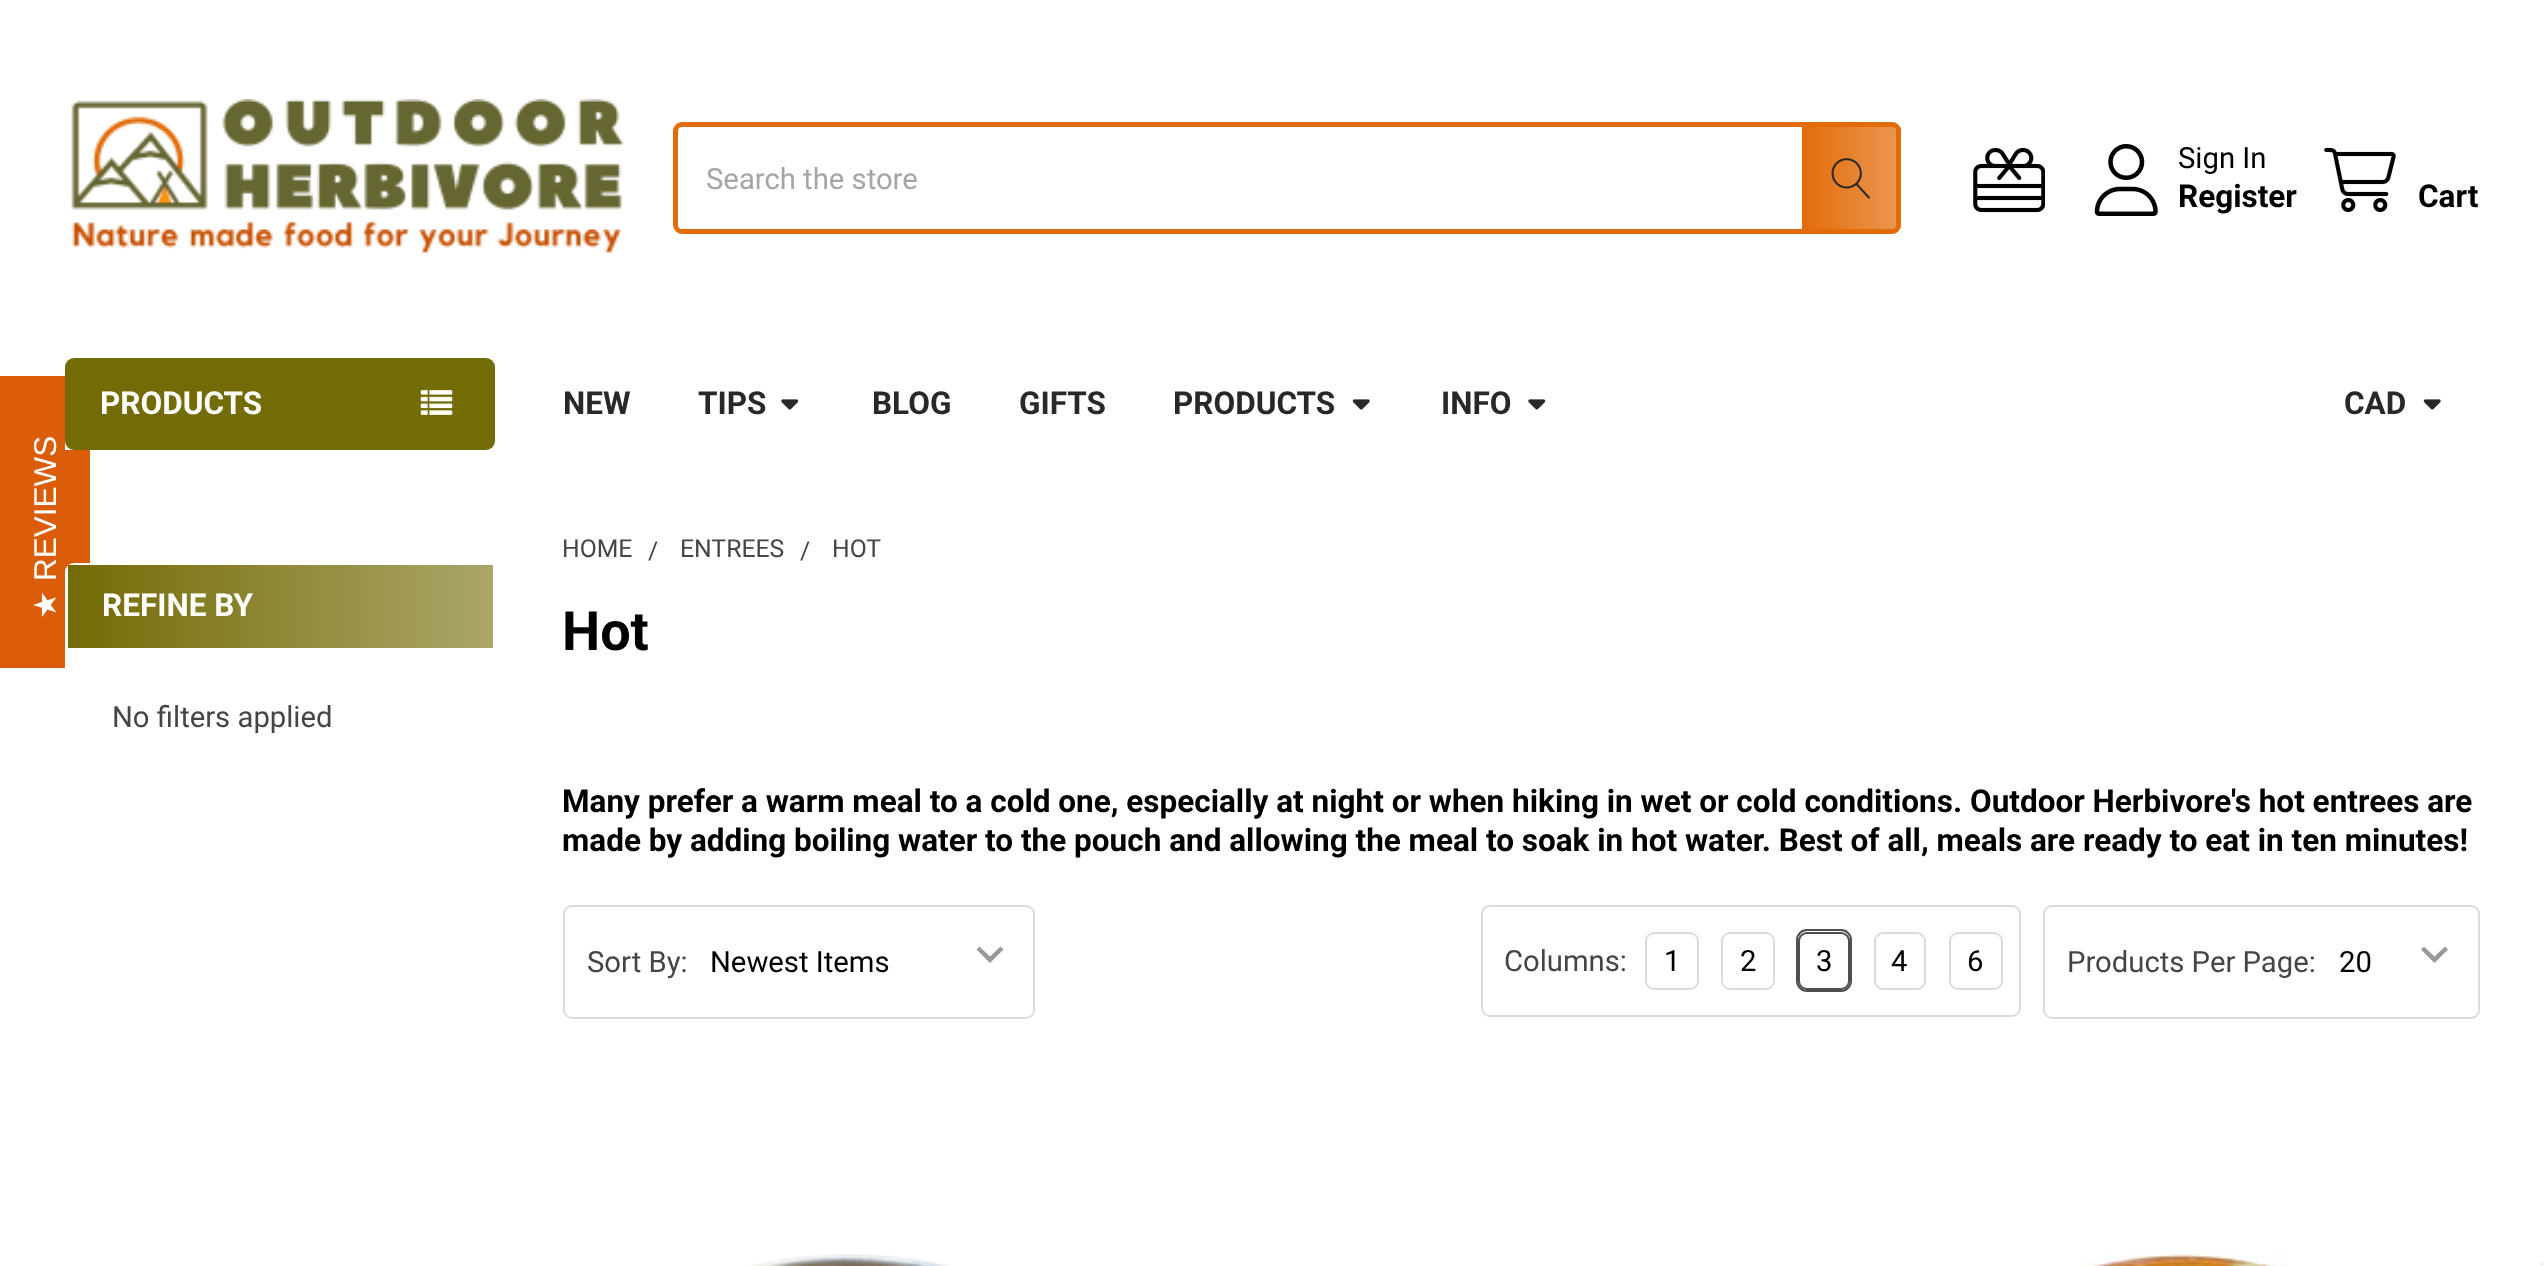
(async () => {
  const canvas = document.querySelector("canvas");
  canvas.width = 2544;
  canvas.height = 1266;
  const ctx = canvas.getContext("2d");
  ctx.miterLimit = 4;
  ctx.fontKerning = "normal";
  async function loadImage(src) {
    const img = new Image();
    img.src = src;
    await img.decode();
    return img;
  }
  let gradient, path;

  ctx.fillStyle = "#ffffff";
  ctx.fillRect(0, 0, 2544, 1266);
  ctx.drawImage(await loadImage("img/1.png"), 71, 99, 553, 156);
  ctx.beginPath();
  ctx.roundRect(675.5, 124.5, 1223, 107, 6.5);
  ctx.strokeStyle = "#e36c0a";
  ctx.lineWidth = 5;
  ctx.stroke();
  gradient = ctx.createLinearGradient(1802, 178, 1901, 178);
  gradient.addColorStop(0, "#e36c0a");
  gradient.addColorStop(1, "rgba(227, 108, 10, 0.7)");
  ctx.fillStyle = gradient;
  ctx.beginPath();
  ctx.roundRect(1802, 122, 99, 112, [0, 9, 9, 0]);
  ctx.fill();
  ctx.drawImage(await loadImage("img/2.png"), 1831, 158, 39, 41);
  ctx.drawImage(await loadImage("img/3.png"), 1973, 147, 72, 66);
  ctx.drawImage(await loadImage("img/4.png"), 2094, 144, 64, 72);
  ctx.drawImage(await loadImage("img/5.png"), 2324, 147, 72, 66);
  ctx.fillStyle = "#db5d09";
  ctx.fillRect(0, 376, 90, 292);
  ctx.fillStyle = "#ffffff";
  ctx.fillRect(65, 376, 25, 74);
  ctx.fillStyle = "#736b05";
  ctx.beginPath();
  ctx.roundRect(65, 358, 430, 92, 9);
  ctx.fill();
  ctx.drawImage(await loadImage("img/6.png"), 420, 390, 33, 25);
  ctx.drawImage(await loadImage("img/7.png"), 781, 399, 18, 11);
  ctx.drawImage(await loadImage("img/8.png"), 1352, 399, 18, 11);
  ctx.drawImage(await loadImage("img/7.png"), 1528, 399, 18, 11);
  ctx.drawImage(await loadImage("img/8.png"), 2423, 399, 18, 11);
  ctx.fillStyle = "#ffffff";
  ctx.beginPath();
  ctx.roundRect(66, 564, 428, 369, 8);
  ctx.fill();
  ctx.strokeStyle = "#ffffff";
  ctx.lineWidth = 2;
  ctx.stroke();
  gradient = ctx.createLinearGradient(68, 606, 493, 606);
  gradient.addColorStop(0, "#736b05");
  gradient.addColorStop(1, "#aba669");
  ctx.fillStyle = gradient;
  ctx.fillRect(68, 565, 425, 83);
  ctx.beginPath();
  ctx.roundRect(564, 906, 470, 112, 8);
  ctx.strokeStyle = "#dcdcdc";
  ctx.stroke();
  ctx.fillStyle = "#999999";
  path = new Path2D("M1000.5 946.5L990 956.5L979.5 946.5L976.5 949.5L990 963L1003.5 949.5Z");
  ctx.fill(path);
  ctx.beginPath();
  ctx.roundRect(1482, 906, 538, 110, 8);
  ctx.stroke();
  ctx.beginPath();
  ctx.roundRect(1646, 933, 52, 56, 8);
  ctx.stroke();
  ctx.beginPath();
  ctx.roundRect(1722, 933, 52, 56, 8);
  ctx.stroke();
  ctx.beginPath();
  ctx.roundRect(1797, 930, 54, 61, 10);
  ctx.strokeStyle = "#4f4f4f";
  ctx.stroke();
  ctx.beginPath();
  ctx.roundRect(1799, 933, 50, 56, 8);
  ctx.stroke();
  ctx.beginPath();
  ctx.roundRect(1875, 933, 50, 56, 8);
  ctx.strokeStyle = "#dcdcdc";
  ctx.stroke();
  ctx.beginPath();
  ctx.roundRect(1950, 933, 52, 56, 8);
  ctx.stroke();
  ctx.beginPath();
  ctx.roundRect(2044, 906, 435, 112, 8);
  ctx.stroke();
  path = new Path2D("M2445 946.5L2434.5 956.5L2424 946.5L2421 949.5L2434.5 963L2448 949.5Z");
  ctx.fill(path);
  ctx.drawImage(await loadImage("img/9.png"), 748, 1254, 202, 12);
  ctx.drawImage(await loadImage("img/10.png"), 2082, 1254, 206, 12);
  ctx.fillStyle = "#f5f5f5";
  ctx.fillRect(2540, 1262, 4, 4);
  ctx.font = "29.25px Roboto";
  ctx.fillStyle = "#a5a5a5";
  ctx.fillText("Search the store", 706, 189);
  ctx.fillStyle = "#000000";
  ctx.fillText("Sign In", 2178, 168);
  ctx.font = "bold 31.5px Roboto";
  ctx.fillText("Register", 2178, 207);
  ctx.fillText("Cart", 2418, 207);
  ctx.fillStyle = "#ffffff";
  ctx.fillText("PRODUCTS", 100, 414);
  ctx.fillStyle = "#282828";
  for (const [text, x, y] of [
    ["NEW", 563, 414],
    ["TIPS", 698, 414],
    ["BLOG", 872, 414],
    ["GIFTS", 1019, 414],
    ["PRODUCTS", 1173, 414],
    ["INFO", 1441, 414],
    ["CAD", 2344, 414],
  ]) {
    ctx.fillText(text, x, y);
  }
  ctx.font = "31.5px Liberation Sans";
  ctx.fillStyle = "#ffffff";
  ctx.save();
  ctx.translate(56, 581);
  ctx.rotate(-90 * Math.PI / 180);
  ctx.fillText("REVIEWS", 0, 0);
  ctx.restore();
  ctx.font = "31.5px DejaVu Sans";
  ctx.save();
  ctx.translate(56, 619);
  ctx.rotate(-90 * Math.PI / 180);
  ctx.fillText("★", 0, 0);
  ctx.restore();
  ctx.font = "bold 31.5px Roboto";
  ctx.fillText("REFINE BY", 102, 616);
  ctx.font = "29.25px Roboto";
  ctx.fillStyle = "#454545";
  ctx.fillText("No filters applied", 112, 727);
  ctx.font = "24.75px Roboto";
  for (const [text, x, y] of [
    ["HOME", 562, 557],
    ["/", 648, 559],
    ["ENTREES", 680, 557],
    ["/", 800, 559],
    ["HOT", 832, 557],
  ]) {
    ctx.fillText(text, x, y);
  }
  ctx.font = "bold 54px Roboto";
  ctx.fillStyle = "#000000";
  ctx.fillText("Hot", 562, 650);
  ctx.font = "bold 31.5px Roboto";
  ctx.fillText("Many prefer a warm meal to a cold one, especially at night or when hiking in wet or cold conditions. Outdoor Herbivore's hot entrees are", 562, 812);
  ctx.fillText("made by adding boiling water to the pouch and allowing the meal to soak in hot water. Best of all, meals are ready to eat in ten minutes!", 562, 851);
  ctx.font = "29.25px Roboto";
  ctx.fillStyle = "#454545";
  ctx.fillText("Sort By:", 587, 972);
  ctx.fillStyle = "#000000";
  ctx.fillText("Newest Items", 710, 972);
  ctx.fillStyle = "#454545";
  ctx.fillText("Columns:", 1504, 971);
  ctx.fillStyle = "#000000";
  for (const [text, x, y] of [
    ["1", 1664, 971],
    ["2", 1740, 971],
    ["3", 1816, 971],
    ["4", 1891, 971],
    ["6", 1967, 971],
  ]) {
    ctx.fillText(text, x, y);
  }
  ctx.fillStyle = "#454545";
  ctx.fillText("Products Per Page:", 2067, 972);
  ctx.fillStyle = "#000000";
  ctx.fillText("20", 2339, 972);
})();
